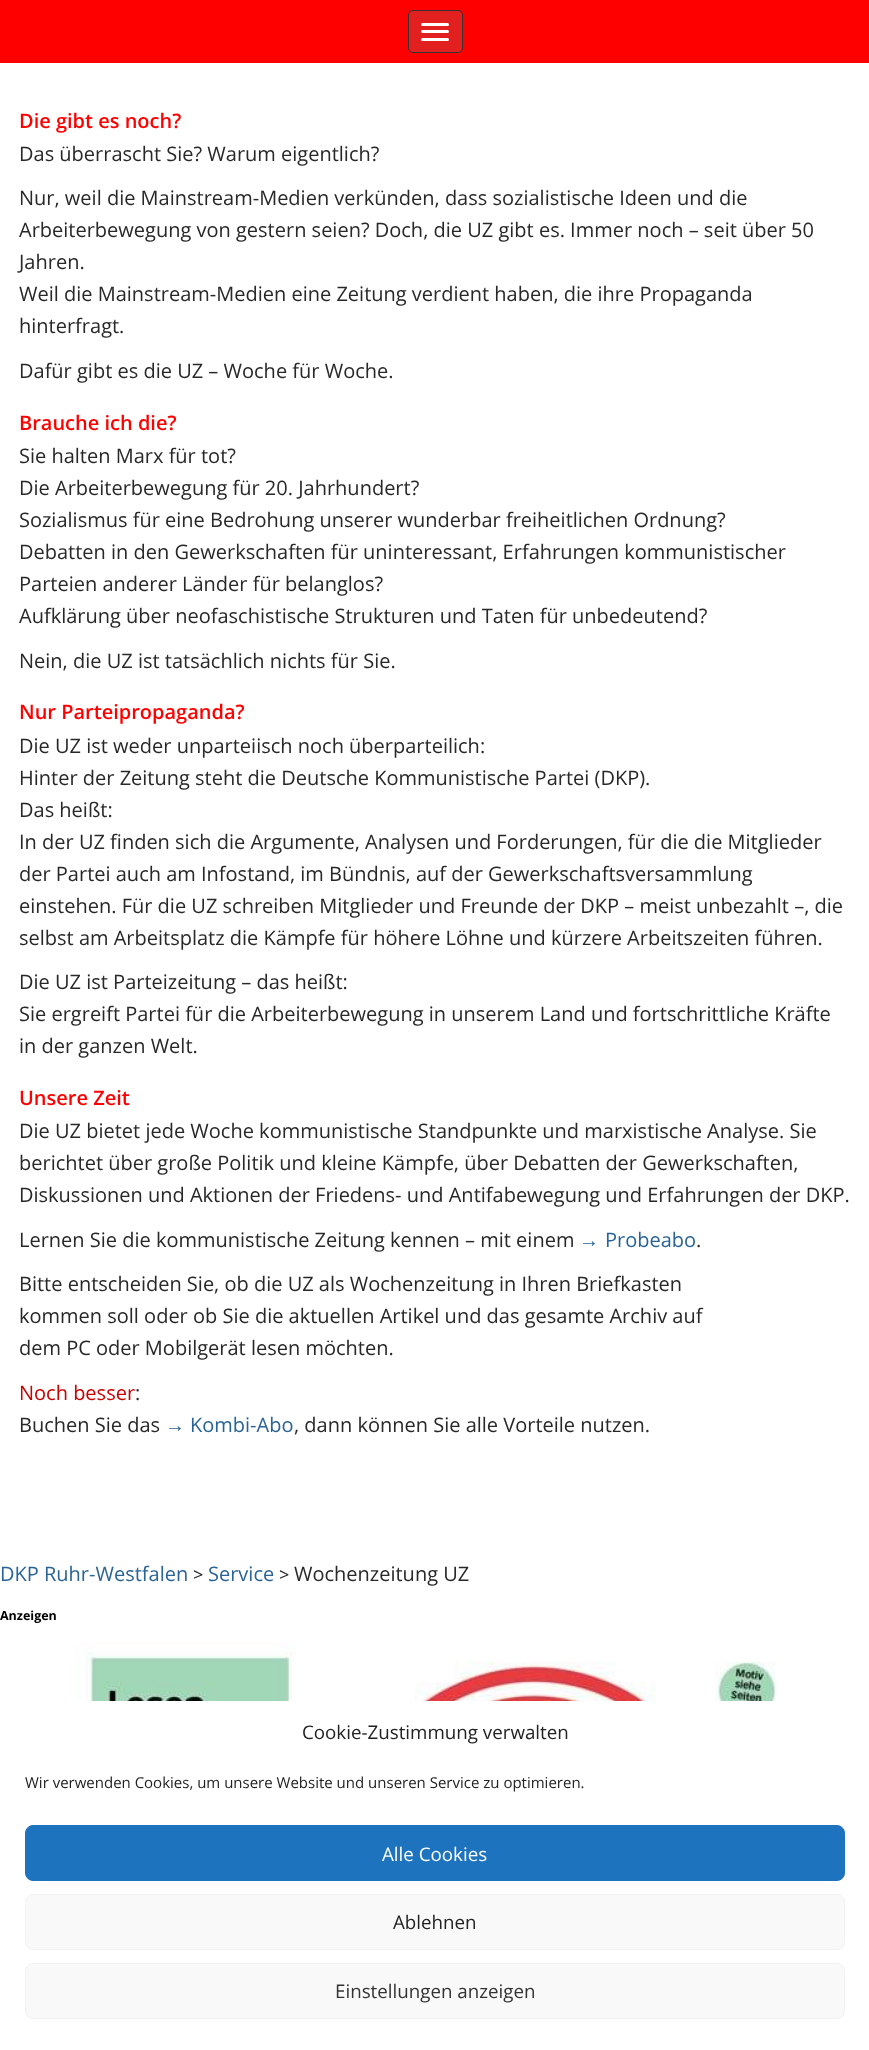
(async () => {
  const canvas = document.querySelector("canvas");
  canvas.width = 869;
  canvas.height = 2050;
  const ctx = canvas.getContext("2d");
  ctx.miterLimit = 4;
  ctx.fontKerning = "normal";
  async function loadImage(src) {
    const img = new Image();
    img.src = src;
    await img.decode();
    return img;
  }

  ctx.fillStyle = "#ffffff";
  ctx.fillRect(0, 0, 869, 2050);
  ctx.fillStyle = "#ff0000";
  ctx.fillRect(0, 0, 869, 63);
  ctx.fillStyle = "#e22020";
  ctx.beginPath();
  ctx.roundRect(408.5, 10.5, 54, 42, 4.5);
  ctx.fill();
  ctx.strokeStyle = "#333333";
  ctx.stroke();
  ctx.fillStyle = "#ffffff";
  ctx.beginPath();
  ctx.roundRect(421, 23, 28, 3, 1.5);
  ctx.fill();
  ctx.beginPath();
  ctx.roundRect(421, 30, 28, 3, 1.5);
  ctx.fill();
  ctx.beginPath();
  ctx.roundRect(421, 38, 28, 3, 1.5);
  ctx.fill();
  ctx.drawImage(await loadImage("img/1.png"), 75, 1642, 701, 59);
  ctx.fillStyle = "#1e73be";
  ctx.beginPath();
  ctx.roundRect(25.5, 1825.5, 819, 55, 7.5);
  ctx.fill();
  ctx.strokeStyle = "#1e73be";
  ctx.stroke();
  ctx.fillStyle = "#f9f9f9";
  ctx.beginPath();
  ctx.roundRect(25.5, 1894.5, 819, 55, 7.5);
  ctx.fill();
  ctx.strokeStyle = "#f2f2f2";
  ctx.stroke();
  ctx.beginPath();
  ctx.roundRect(25.5, 1963.5, 819, 55, 7.5);
  ctx.fill();
  ctx.stroke();
  ctx.font = "600 20px Open Sans";
  ctx.fillStyle = "#ff0000";
  ctx.fillText("Die gibt es noch?", 19, 128);
  ctx.font = "20px Open Sans";
  ctx.fillStyle = "#282828";
  for (const [text, x, y] of [
    ["Das überrascht Sie? Warum eigentlich?", 19, 161],
    ["Nur, weil die Mainstream-Medien verkünden, dass sozialistische Ideen und die", 19, 205],
    ["Arbeiterbewegung von gestern seien? Doch, die UZ gibt es. Immer noch – seit über 50", 19, 237],
    ["Jahren.", 19, 269],
    ["Weil die Mainstream-Medien eine Zeitung verdient haben, die ihre Propaganda", 19, 301],
    ["hinterfragt.", 19, 333],
    ["Dafür gibt es die UZ – Woche für Woche.", 19, 378],
  ]) {
    ctx.fillText(text, x, y);
  }
  ctx.font = "600 20px Open Sans";
  ctx.fillStyle = "#ff0000";
  ctx.fillText("Brauche ich die?", 19, 430);
  ctx.font = "20px Open Sans";
  ctx.fillStyle = "#282828";
  for (const [text, x, y] of [
    ["Sie halten Marx für tot?", 19, 463],
    ["Die Arbeiterbewegung für 20. Jahrhundert?", 19, 495],
    ["Sozialismus für eine Bedrohung unserer wunderbar freiheitlichen Ordnung?", 19, 527],
    ["Debatten in den Gewerkschaften für uninteressant, Erfahrungen kommunistischer", 19, 559],
    ["Parteien anderer Länder für belanglos?", 19, 591],
    ["Aufklärung über neofaschistische Strukturen und Taten für unbedeutend?", 19, 623],
    ["Nein, die UZ ist tatsächlich nichts für Sie.", 19, 668],
  ]) {
    ctx.fillText(text, x, y);
  }
  ctx.font = "600 20px Open Sans";
  ctx.fillStyle = "#ff0000";
  ctx.fillText("Nur Parteipropaganda?", 19, 719);
  ctx.font = "20px Open Sans";
  ctx.fillStyle = "#282828";
  for (const [text, x, y] of [
    ["Die UZ ist weder unparteiisch noch überparteilich:", 19, 753],
    ["Hinter der Zeitung steht die Deutsche Kommunistische Partei (DKP).", 19, 785],
    ["Das heißt:", 19, 817],
    ["In der UZ finden sich die Argumente, Analysen und Forderungen, für die die Mitglieder", 19, 849],
    ["der Partei auch am Infostand, im Bündnis, auf der Gewerkschaftsversammlung", 19, 881],
    ["einstehen. Für die UZ schreiben Mitglieder und Freunde der DKP – meist unbezahlt –, die", 19, 913],
    ["selbst am Arbeitsplatz die Kämpfe für höhere Löhne und kürzere Arbeitszeiten führen.", 19, 945],
    ["Die UZ ist Parteizeitung – das heißt:", 19, 989],
    ["Sie ergreift Partei für die Arbeiterbewegung in unserem Land und fortschrittliche Kräfte", 19, 1021],
    ["in der ganzen Welt.", 19, 1053],
  ]) {
    ctx.fillText(text, x, y);
  }
  ctx.font = "600 20px Open Sans";
  ctx.fillStyle = "#ff0000";
  ctx.fillText("Unsere Zeit", 19, 1105);
  ctx.font = "20px Open Sans";
  ctx.fillStyle = "#282828";
  for (const [text, x, y] of [
    ["Die UZ bietet jede Woche kommunistische Standpunkte und marxistische Analyse. Sie", 19, 1138],
    ["berichtet über große Politik und kleine Kämpfe, über Debatten der Gewerkschaften,", 19, 1170],
    ["Diskussionen und Aktionen der Friedens- und Antifabewegung und Erfahrungen der DKP.", 19, 1202],
    ["Lernen Sie die kommunistische Zeitung kennen – mit einem", 19, 1247],
  ]) {
    ctx.fillText(text, x, y);
  }
  ctx.font = "20px Liberation Sans";
  ctx.fillStyle = "#2a6496";
  ctx.fillText("→", 579, 1247);
  ctx.font = "20px Open Sans";
  ctx.fillText("Probeabo", 605, 1247);
  ctx.fillStyle = "#282828";
  for (const [text, x, y] of [
    [".", 696, 1247],
    ["Bitte entscheiden Sie, ob die UZ als Wochenzeitung in Ihren Briefkasten", 19, 1291],
    ["kommen soll oder ob Sie die aktuellen Artikel und das gesamte Archiv auf", 19, 1323],
    ["dem PC oder Mobilgerät lesen möchten.", 19, 1355],
  ]) {
    ctx.fillText(text, x, y);
  }
  ctx.fillStyle = "#cb0100";
  ctx.fillText("Noch besser", 19, 1400);
  ctx.fillStyle = "#282828";
  ctx.fillText(":", 135, 1400);
  ctx.fillText("Buchen Sie das", 19, 1432);
  ctx.font = "20px Liberation Sans";
  ctx.fillStyle = "#2a6496";
  ctx.fillText("→", 165, 1432);
  ctx.font = "20px Open Sans";
  ctx.fillText("Kombi-Abo", 190, 1432);
  ctx.fillStyle = "#282828";
  ctx.fillText(", dann können Sie alle Vorteile nutzen.", 294, 1432);
  ctx.fillStyle = "#2a6496";
  ctx.fillText("DKP Ruhr-Westfalen", 0, 1581);
  ctx.font = "18px Open Sans";
  ctx.fillStyle = "#282828";
  ctx.fillText(">", 193, 1581);
  ctx.font = "20px Open Sans";
  ctx.fillStyle = "#2a6496";
  ctx.fillText("Service", 208, 1581);
  ctx.font = "18px Open Sans";
  ctx.fillStyle = "#282828";
  ctx.fillText(">", 279, 1581);
  ctx.font = "20px Open Sans";
  ctx.fillText("Wochenzeitung UZ", 294, 1581);
  ctx.font = "bold 12.5px Open Sans";
  ctx.fillStyle = "#000000";
  ctx.fillText("Anzeigen", 0, 1620);
  ctx.font = "18.75px Open Sans";
  ctx.fillStyle = "#222222";
  ctx.fillText("Cookie-Zustimmung verwalten", 302, 1739);
  ctx.font = "15px Open Sans";
  ctx.fillText("Wir verwenden Cookies, um unsere Website und unseren Service zu optimieren.", 25, 1788);
  ctx.font = "18.75px Open Sans";
  ctx.fillStyle = "#ffffff";
  ctx.fillText("Alle Cookies", 382, 1861);
  ctx.fillStyle = "#222222";
  ctx.fillText("Ablehnen", 393, 1929);
  ctx.fillStyle = "#333333";
  ctx.fillText("Einstellungen anzeigen", 335, 1998);
})();
